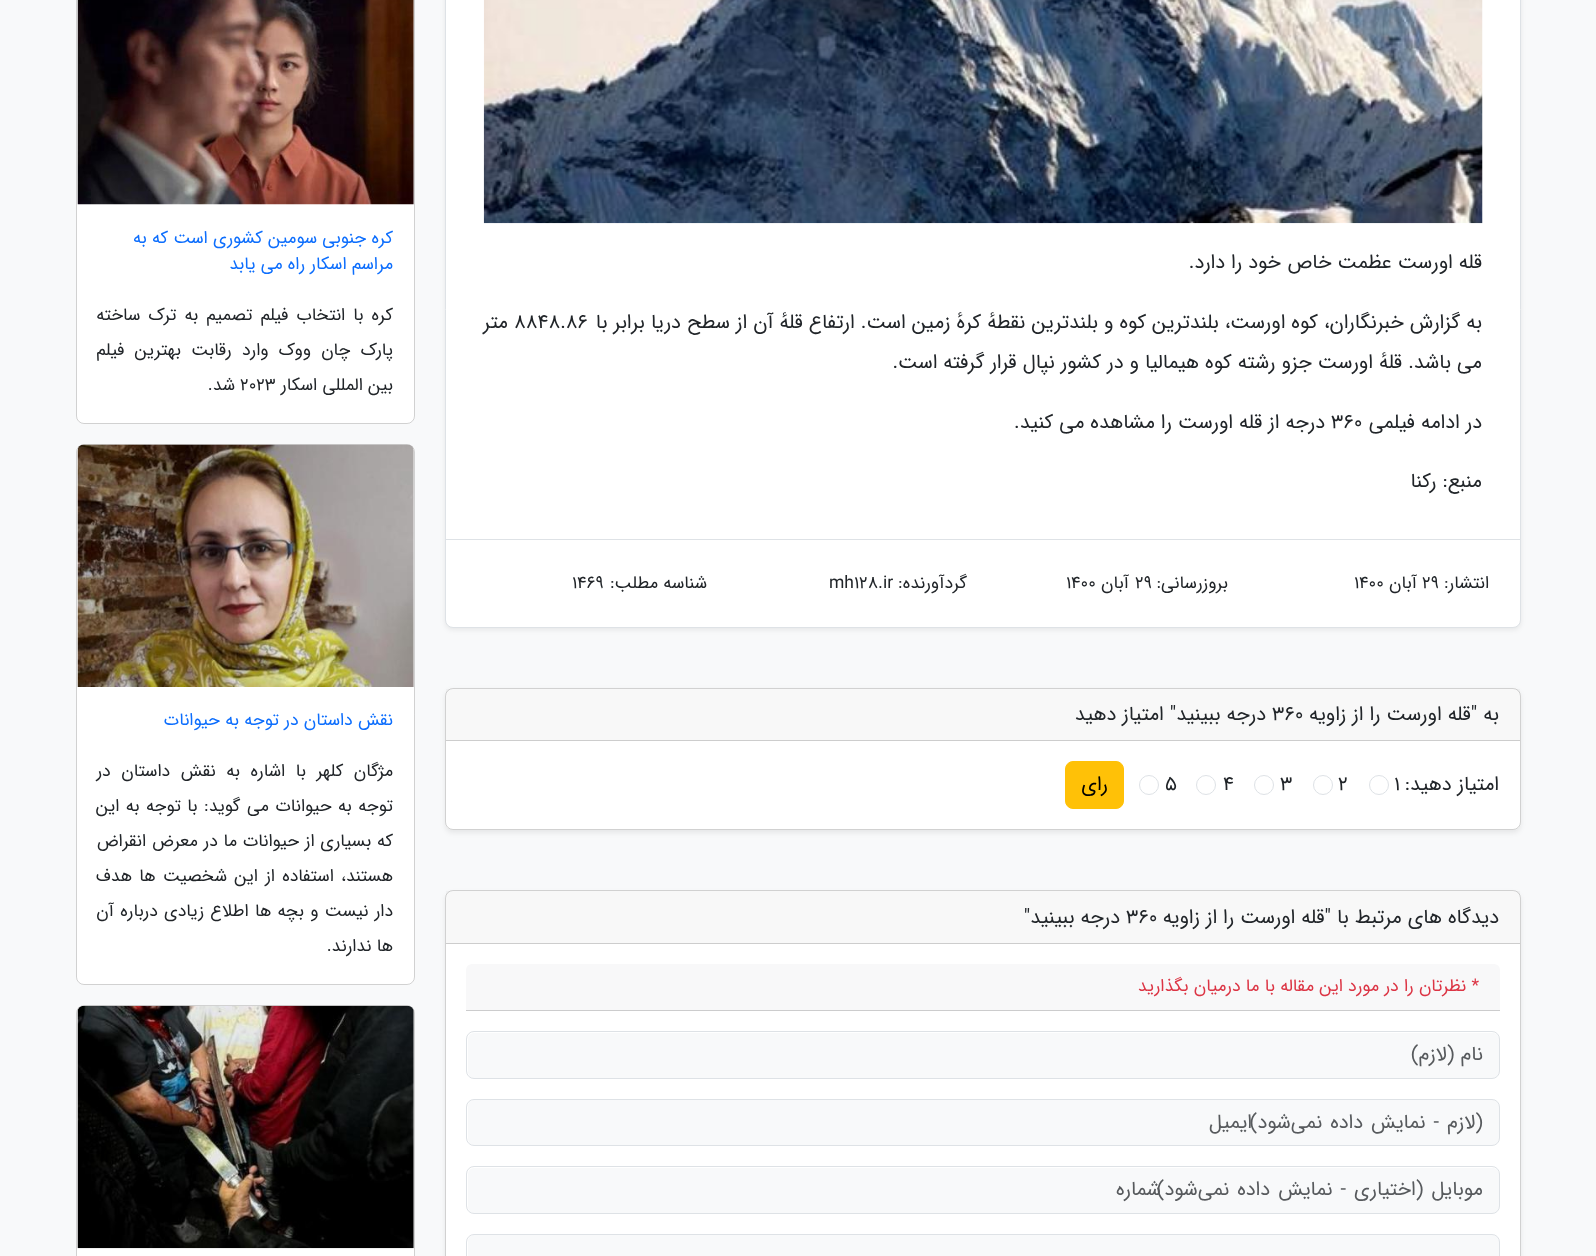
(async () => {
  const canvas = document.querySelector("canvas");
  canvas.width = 1596;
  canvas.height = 1256;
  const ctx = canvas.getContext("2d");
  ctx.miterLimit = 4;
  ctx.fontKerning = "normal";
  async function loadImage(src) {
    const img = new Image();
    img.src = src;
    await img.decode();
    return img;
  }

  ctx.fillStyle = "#f8f9fa";
  ctx.fillRect(0, 0, 1596, 1256);
  ctx.fillStyle = "rgba(0, 0, 0, 0.07)";
  ctx.filter = "blur(2.5px)";
  ctx.beginPath();
  ctx.roundRect(445, -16, 1076, 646, 8);
  ctx.fill();
  ctx.filter = "none";
  ctx.fillStyle = "#ffffff";
  ctx.beginPath();
  ctx.roundRect(445.5, -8.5, 1075, 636, 7.5);
  ctx.fill();
  ctx.strokeStyle = "#dee2e6";
  ctx.stroke();
  ctx.drawImage(await loadImage("img/1.png"), 483, 0, 1000, 224);
  ctx.fillStyle = "#dee2e6";
  ctx.fillRect(446, 539, 1074, 1);
  ctx.fillStyle = "rgba(0, 0, 0, 0.07)";
  ctx.filter = "blur(2.5px)";
  ctx.beginPath();
  ctx.roundRect(445, 690, 1076, 143, 8);
  ctx.fill();
  ctx.filter = "none";
  ctx.fillStyle = "#ffffff";
  ctx.beginPath();
  ctx.roundRect(445, 688, 1076, 142, 8);
  ctx.fill();
  ctx.beginPath();
  ctx.roundRect(445.5, 688.5, 1075, 141, 7.5);
  ctx.strokeStyle = "rgba(0, 0, 0, 0.18)";
  ctx.stroke();
  ctx.fillStyle = "rgba(33, 37, 41, 0.03)";
  ctx.fillRect(446, 689, 1074, 51);
  ctx.fillStyle = "#cdcdcd";
  ctx.fillRect(446, 740, 1074, 1);
  ctx.beginPath();
  ctx.arc(1379, 785, 9.5, 0, Math.PI * 2);
  ctx.strokeStyle = "#dee2e6";
  ctx.stroke();
  ctx.beginPath();
  ctx.arc(1323, 785, 9.5, 0, Math.PI * 2);
  ctx.stroke();
  ctx.beginPath();
  ctx.arc(1264, 785, 9.5, 0, Math.PI * 2);
  ctx.stroke();
  ctx.beginPath();
  ctx.arc(1206, 785, 9.5, 0, Math.PI * 2);
  ctx.stroke();
  ctx.beginPath();
  ctx.arc(1149, 785, 9.5, 0, Math.PI * 2);
  ctx.stroke();
  ctx.fillStyle = "#ffc107";
  ctx.beginPath();
  ctx.roundRect(1065.5, 761.5, 58, 47, 7.5);
  ctx.fill();
  ctx.strokeStyle = "#ffc107";
  ctx.stroke();
  ctx.fillStyle = "rgba(0, 0, 0, 0.07)";
  ctx.filter = "blur(2.5px)";
  ctx.beginPath();
  ctx.roundRect(445, 893, 1076, 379, 8);
  ctx.fill();
  ctx.filter = "none";
  ctx.fillStyle = "#ffffff";
  ctx.beginPath();
  ctx.roundRect(445, 890, 1076, 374, 8);
  ctx.fill();
  ctx.beginPath();
  ctx.roundRect(445.5, 890.5, 1075, 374, 7.5);
  ctx.strokeStyle = "rgba(0, 0, 0, 0.18)";
  ctx.stroke();
  ctx.fillStyle = "rgba(33, 37, 41, 0.03)";
  ctx.fillRect(446, 891, 1074, 52);
  ctx.fillStyle = "#cdcdcd";
  ctx.fillRect(446, 943, 1074, 1);
  ctx.fillStyle = "#f8f8f9";
  ctx.beginPath();
  ctx.roundRect(466, 964, 1034, 47, [6, 6, 0, 0]);
  ctx.fill();
  ctx.fillStyle = "#cccccd";
  ctx.fillRect(466, 1010, 1034, 1);
  ctx.fillStyle = "#f8f9fa";
  ctx.beginPath();
  ctx.roundRect(468, 1033, 1031, 45, 6);
  ctx.fill();
  ctx.beginPath();
  ctx.roundRect(466.5, 1031.5, 1033, 47, 7.5);
  ctx.strokeStyle = "#dee2e6";
  ctx.stroke();
  ctx.beginPath();
  ctx.roundRect(468, 1100, 1031, 45, 6);
  ctx.fill();
  ctx.beginPath();
  ctx.roundRect(466.5, 1099.5, 1033, 46, 7.5);
  ctx.stroke();
  ctx.beginPath();
  ctx.roundRect(468, 1168, 1031, 45, 6);
  ctx.fill();
  ctx.beginPath();
  ctx.roundRect(466.5, 1166.5, 1033, 47, 7.5);
  ctx.stroke();
  ctx.beginPath();
  ctx.roundRect(468, 1235, 1031, 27, 6);
  ctx.fill();
  ctx.beginPath();
  ctx.roundRect(466.5, 1234.5, 1033, 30, 7.5);
  ctx.stroke();
  ctx.fillStyle = "#ffffff";
  ctx.beginPath();
  ctx.roundRect(76, -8, 339, 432, 8);
  ctx.fill();
  ctx.beginPath();
  ctx.roundRect(76.5, -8.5, 338, 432, 7.5);
  ctx.strokeStyle = "rgba(0, 0, 0, 0.18)";
  ctx.stroke();
  ctx.drawImage(await loadImage("img/2.png"), 77, 0, 337, 205);
  ctx.beginPath();
  ctx.roundRect(76, 444, 339, 541, 8);
  ctx.fill();
  ctx.beginPath();
  ctx.roundRect(76.5, 444.5, 338, 540, 7.5);
  ctx.stroke();
  ctx.drawImage(await loadImage("img/3.png"), 77, 444, 337, 243);
  ctx.beginPath();
  ctx.roundRect(76, 1005, 339, 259, 8);
  ctx.fill();
  ctx.beginPath();
  ctx.roundRect(76.5, 1005.5, 338, 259, 7.5);
  ctx.stroke();
  ctx.drawImage(await loadImage("img/4.png"), 77, 1005, 337, 244);
  ctx.direction = "rtl";
  ctx.font = "20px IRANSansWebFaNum";
  ctx.fillStyle = "#212529";
  ctx.fillText("قله اورست عظمت خاص خود را دارد.", 1482, 268);
  ctx.fillText("به گزارش خبرنگاران، کوه اورست، بلندترین کوه و بلندترین نقطهٔ کرهٔ زمین است. ارتفاع قلهٔ آن از سطح دریا برابر با", 1482, 328);
  ctx.direction = "ltr";
  ctx.fillText("8848.86", 514, 328);
  ctx.direction = "rtl";
  for (const [text, x, y] of [
    ["متر", 508, 328],
    ["می باشد. قلهٔ اورست جزو رشته کوه هیمالیا و در کشور نپال قرار گرفته است.", 1482, 368],
    ["در ادامه فیلمی", 1482, 428],
  ]) {
    ctx.fillText(text, x, y);
  }
  ctx.direction = "ltr";
  ctx.fillText("360", 1331, 428);
  ctx.direction = "rtl";
  ctx.fillText("درجه از قله اورست را مشاهده می کنید.", 1325, 428);
  ctx.fillText("منبع: رکنا", 1482, 487);
  ctx.font = "17.5px IRANSansWebFaNum";
  ctx.fillText("انتشار:", 1489, 588);
  ctx.direction = "ltr";
  ctx.fillText("29", 1422, 588);
  ctx.direction = "rtl";
  ctx.fillText("آبان", 1417, 588);
  ctx.direction = "ltr";
  ctx.fillText("1400", 1354, 588);
  ctx.direction = "rtl";
  ctx.fillText("بروزرسانی:", 1228, 588);
  ctx.direction = "ltr";
  ctx.fillText("29", 1135, 588);
  ctx.direction = "rtl";
  ctx.fillText("آبان", 1129, 588);
  ctx.direction = "ltr";
  ctx.fillText("1400", 1066, 588);
  ctx.direction = "rtl";
  ctx.fillText("گردآورنده:", 967, 588);
  ctx.direction = "ltr";
  ctx.fillText("mh128.ir", 829, 588);
  ctx.direction = "rtl";
  ctx.fillText("شناسه مطلب:", 707, 588);
  ctx.direction = "ltr";
  ctx.fillText("1469", 572, 588);
  ctx.direction = "rtl";
  ctx.font = "20px IRANSansWebFaNum";
  ctx.fillText("به \"قله اورست را از زاویه", 1499, 720);
  ctx.direction = "ltr";
  ctx.fillText("360", 1272, 720);
  ctx.direction = "rtl";
  ctx.fillText("درجه ببینید\" امتیاز دهید", 1266, 720);
  ctx.fillText("امتیاز دهید:", 1499, 790);
  ctx.direction = "ltr";
  for (const [text, x, y] of [
    ["1", 1394, 790],
    ["2", 1338, 790],
    ["3", 1280, 790],
    ["4", 1223, 790],
    ["5", 1165, 790],
  ]) {
    ctx.fillText(text, x, y);
  }
  ctx.direction = "rtl";
  ctx.fillStyle = "#000000";
  ctx.fillText("رای", 1108, 790);
  ctx.fillStyle = "#212529";
  ctx.fillText("دیدگاه های مرتبط با \"قله اورست را از زاویه", 1499, 923);
  ctx.direction = "ltr";
  ctx.fillText("360", 1126, 923);
  ctx.direction = "rtl";
  ctx.fillText("درجه ببینید\"", 1120, 923);
  ctx.font = "17.5px IRANSansWebFaNum";
  ctx.fillStyle = "#dc3545";
  ctx.fillText("* نظرتان را در مورد این مقاله با ما درمیان بگذارید", 1479, 991);
  ctx.font = "20px IRANSansWebFaNum";
  ctx.fillStyle = "#575a5d";
  ctx.fillText("نام (لازم)", 1483, 1060);
  ctx.fillText("ایمیل", 1252, 1128);
  ctx.wordSpacing = "2px";
  ctx.fillText("(لازم - نمایش داده نمی‌شود)", 1483, 1128);
  ctx.wordSpacing = "0px";
  ctx.fillText("شماره", 1161, 1195);
  ctx.wordSpacing = "2px";
  ctx.fillText("موبایل (اختیاری - نمایش داده نمی‌شود)", 1483, 1195);
  ctx.wordSpacing = "0px";
  ctx.font = "17.5px IRANSansWebFaNum";
  ctx.fillStyle = "#0d6efd";
  ctx.fillText("کره جنوبی سومین کشوری است که به", 393, 243);
  ctx.fillText("مراسم اسکار راه می یابد", 393, 269);
  ctx.wordSpacing = "2.75px";
  ctx.fillStyle = "#212529";
  ctx.fillText("کره با انتخاب فیلم تصمیم به ترک ساخته", 393, 320);
  ctx.wordSpacing = "5px";
  ctx.fillText("پارک چان ووک وارد رقابت بهترین فیلم", 393, 355);
  ctx.wordSpacing = "0px";
  ctx.fillText("بین المللی اسکار", 393, 390);
  ctx.direction = "ltr";
  ctx.fillText("2023", 240, 390);
  ctx.direction = "rtl";
  ctx.fillText("شد.", 235, 390);
  ctx.fillStyle = "#0d6efd";
  ctx.fillText("نقش داستان در توجه به حیوانات", 393, 725);
  ctx.wordSpacing = "5.25px";
  ctx.fillStyle = "#212529";
  ctx.fillText("مژگان کلهر با اشاره به نقش داستان در", 393, 776);
  ctx.wordSpacing = "1.25px";
  ctx.fillText("توجه به حیوانات می گوید: با توجه به این", 393, 811);
  ctx.wordSpacing = "0.5px";
  ctx.fillText("که بسیاری از حیوانات ما در معرض انقراض", 393, 846);
  ctx.wordSpacing = "2px";
  ctx.fillText("هستند، استفاده از این شخصیت ها هدف", 393, 881);
  ctx.wordSpacing = "1px";
  ctx.fillText("دار نیست و بچه ها اطلاع زیادی درباره آن", 393, 916);
  ctx.wordSpacing = "0px";
  ctx.fillText("ها ندارند.", 393, 951);
})();
